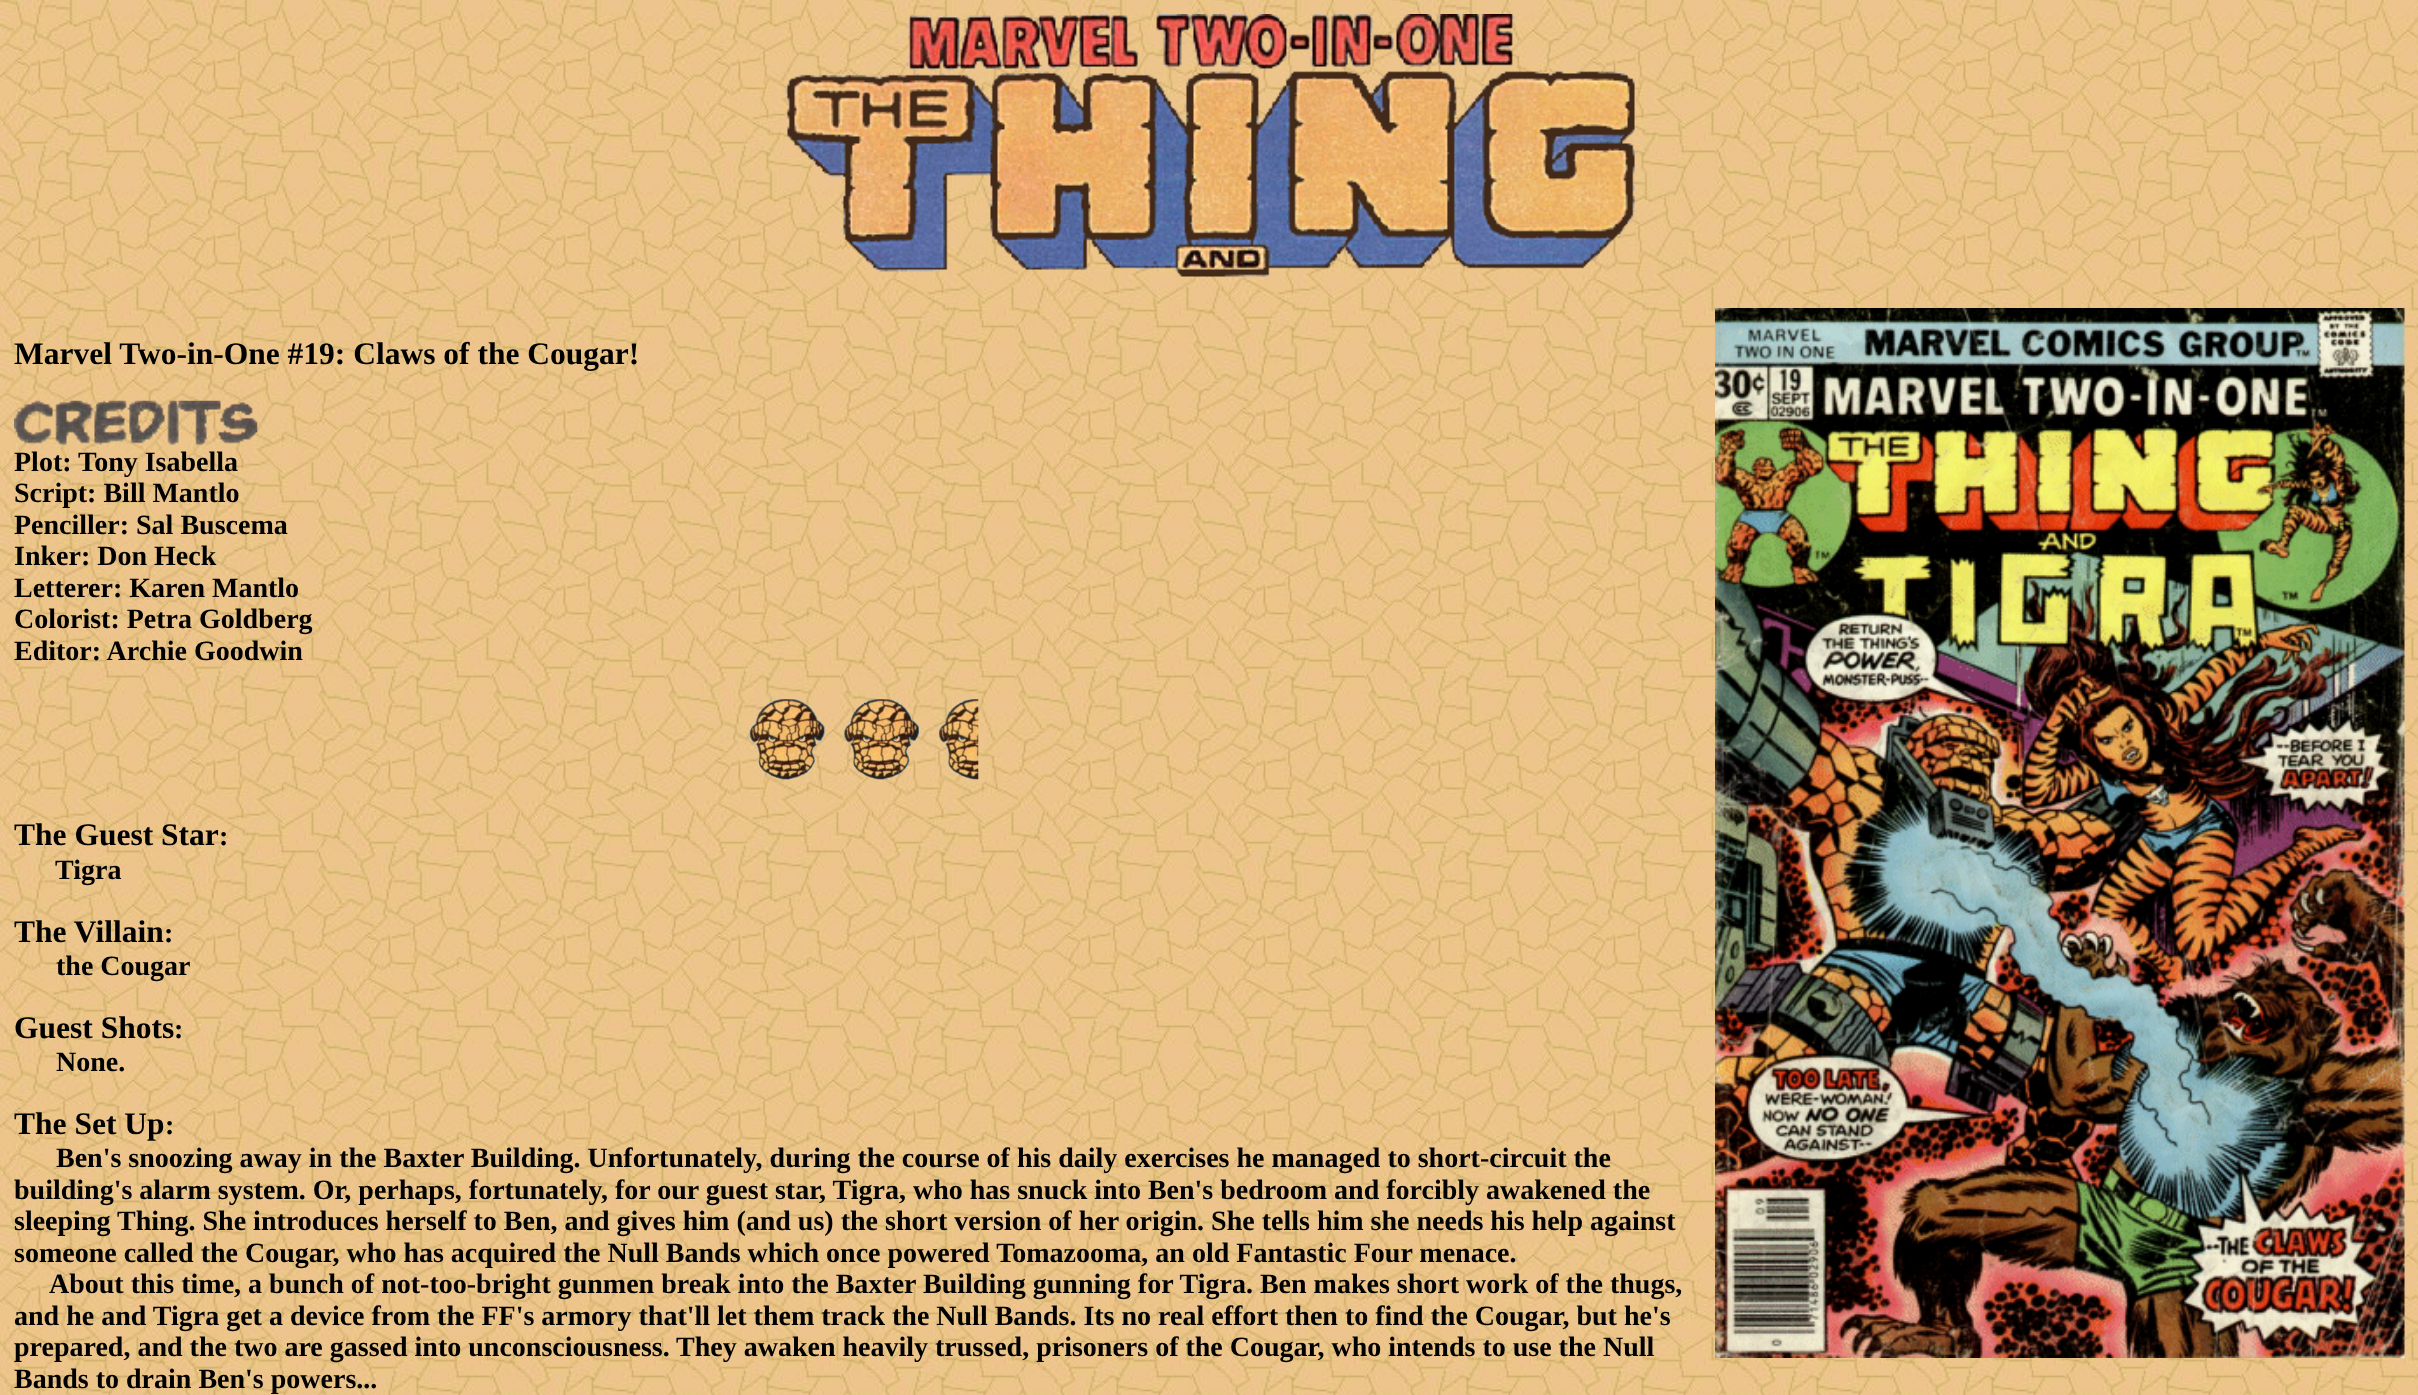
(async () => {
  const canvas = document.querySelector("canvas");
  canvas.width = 2418;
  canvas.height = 1395;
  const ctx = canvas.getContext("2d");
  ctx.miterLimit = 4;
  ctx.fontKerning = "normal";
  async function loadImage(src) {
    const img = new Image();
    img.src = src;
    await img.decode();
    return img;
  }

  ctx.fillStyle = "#ffffff";
  ctx.fillRect(0, 0, 2418, 1395);
  ctx.drawImage(await loadImage("img/1.png"), 0, 0, 2418, 1395);
  ctx.drawImage(await loadImage("img/2.png"), 785, 14, 850, 263);
  ctx.drawImage(await loadImage("img/3.png"), 1715, 308, 690, 1050);
  ctx.drawImage(await loadImage("img/4.png"), 14, 400, 244, 45);
  ctx.drawImage(await loadImage("img/5.png"), 749, 699, 76, 81);
  ctx.drawImage(await loadImage("img/6.png"), 844, 699, 75, 81);
  ctx.drawImage(await loadImage("img/7.png"), 939, 699, 40, 81);
  ctx.font = "bold 31.5px Liberation Serif";
  ctx.fillStyle = "#000000";
  ctx.fillText("Marvel Two-in-One #19: Claws of the Cougar!", 14, 364);
  ctx.font = "bold 28px Liberation Serif";
  for (const [text, x, y] of [
    ["Plot: Tony Isabella", 14, 471],
    ["Script: Bill Mantlo", 14, 502],
    ["Penciller: Sal Buscema", 14, 534],
    ["Inker: Don Heck", 14, 565],
    ["Letterer: Karen Mantlo", 14, 597],
    ["Colorist: Petra Goldberg", 14, 628],
    ["Editor: Archie Goodwin", 14, 660],
  ]) {
    ctx.fillText(text, x, y);
  }
  ctx.font = "bold 31.5px Liberation Serif";
  ctx.fillText("The Guest Star", 14, 845);
  ctx.font = "bold 28px Liberation Serif";
  ctx.fillText(":", 219, 845);
  ctx.fillText("Tigra", 55, 879);
  ctx.font = "bold 31.5px Liberation Serif";
  ctx.fillText("The Villain", 14, 942);
  ctx.font = "bold 28px Liberation Serif";
  ctx.fillText(":", 164, 942);
  ctx.fillText("the Cougar", 56, 975);
  ctx.font = "bold 31.5px Liberation Serif";
  ctx.fillText("Guest Shots", 14, 1038);
  ctx.font = "bold 28px Liberation Serif";
  ctx.fillText(":", 174, 1038);
  ctx.fillText("None.", 56, 1071);
  ctx.font = "bold 31.5px Liberation Serif";
  ctx.fillText("The Set Up", 14, 1134);
  ctx.font = "bold 28px Liberation Serif";
  for (const [text, x, y] of [
    [":", 165, 1134],
    ["Ben's snoozing away in the Baxter Building. Unfortunately, during the course of his daily exercises he managed to short-circuit the", 56, 1167],
    ["building's alarm system. Or, perhaps, fortunately, for our guest star, Tigra, who has snuck into Ben's bedroom and forcibly awakened the", 14, 1199],
    ["sleeping Thing. She introduces herself to Ben, and gives him (and us) the short version of her origin. She tells him she needs his help against", 14, 1230],
    ["someone called the Cougar, who has acquired the Null Bands which once powered Tomazooma, an old Fantastic Four menace.", 14, 1262],
    ["About this time, a bunch of not-too-bright gunmen break into the Baxter Building gunning for Tigra. Ben makes short work of the thugs,", 49, 1293],
    ["and he and Tigra get a device from the FF's armory that'll let them track the Null Bands. Its no real effort then to find the Cougar, but he's", 14, 1325],
    ["prepared, and the two are gassed into unconsciousness.", 14, 1356],
    ["They awaken heavily trussed, prisoners of the Cougar, who intends to use the Null", 676, 1356],
    ["Bands to drain Ben's powers...", 14, 1388],
  ]) {
    ctx.fillText(text, x, y);
  }
})();
